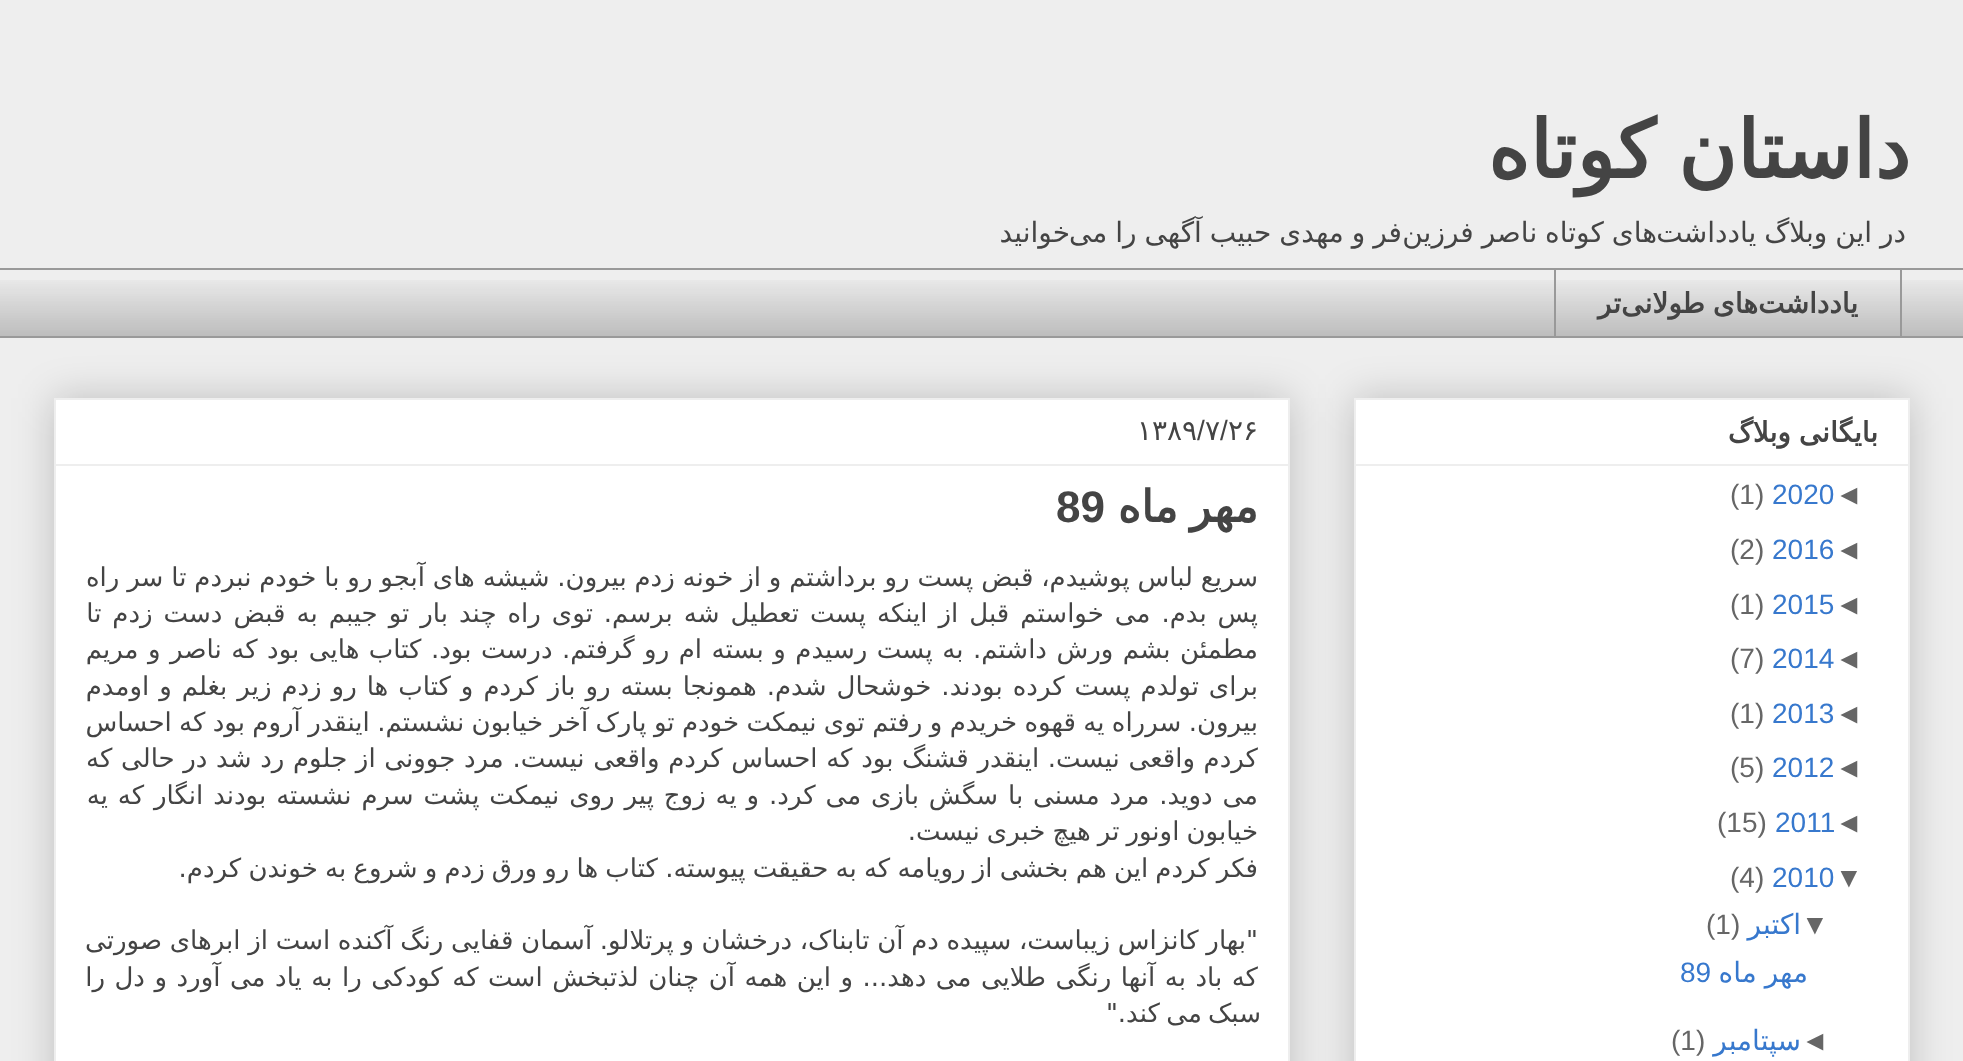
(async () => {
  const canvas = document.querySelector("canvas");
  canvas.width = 1963;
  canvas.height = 1061;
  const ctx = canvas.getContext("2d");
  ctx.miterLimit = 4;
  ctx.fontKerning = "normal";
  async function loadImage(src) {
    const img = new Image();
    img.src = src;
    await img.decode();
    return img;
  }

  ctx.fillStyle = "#eeeeee";
  ctx.fillRect(0, 0, 1963, 1061);
  ctx.drawImage(await loadImage("img/1.png"), 0, 280, 1963, 56);
  ctx.fillStyle = "#999999";
  ctx.fillRect(0, 268, 1963, 2);
  ctx.strokeStyle = "#999999";
  ctx.lineWidth = 2;
  ctx.strokeRect(1555, 269, 346, 68);
  ctx.fillRect(0, 336, 1963, 2);
  ctx.fillStyle = "rgba(0, 0, 0, 0.2)";
  ctx.filter = "blur(20px)";
  ctx.beginPath();
  ctx.rect(1354, 398, 556, 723);
  ctx.fill();
  ctx.filter = "none";
  ctx.fillStyle = "#ffffff";
  ctx.beginPath();
  ctx.rect(1355, 399, 554, 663);
  ctx.fill();
  ctx.strokeStyle = "#eeeeee";
  ctx.stroke();
  ctx.fillStyle = "#eeeeee";
  ctx.fillRect(1356, 464, 552, 2);
  ctx.fillStyle = "rgba(0, 0, 0, 0.2)";
  ctx.filter = "blur(20px)";
  ctx.beginPath();
  ctx.rect(54, 398, 1236, 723);
  ctx.fill();
  ctx.filter = "none";
  ctx.fillStyle = "#ffffff";
  ctx.beginPath();
  ctx.rect(55, 399, 1234, 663);
  ctx.fill();
  ctx.stroke();
  ctx.fillStyle = "#eeeeee";
  ctx.fillRect(56, 464, 1232, 2);
  ctx.wordSpacing = "-3px";
  ctx.direction = "rtl";
  ctx.font = "bold 80px DejaVu Sans";
  ctx.fillStyle = "#444444";
  ctx.fillText("داستان کوتاه", 1910, 178);
  ctx.wordSpacing = "-1px";
  ctx.font = "28px DejaVu Sans";
  for (const [text, x, y] of [
    ["فر و مهدی حبیب آگهی را می", 1402, 242],
    ["های کوتاه ناصر فرزین", 1657, 242],
    ["در این وبلاگ یادداشت", 1906, 242],
  ]) {
    ctx.fillText(text, x, y);
  }
  ctx.wordSpacing = "0px";
  ctx.fillText("خوانید", 1070, 242);
  ctx.font = "bold 28px DejaVu Sans";
  ctx.fillText("یادداشت", 1858, 313);
  ctx.wordSpacing = "-1px";
  ctx.fillText("های طولانی", 1758, 313);
  ctx.wordSpacing = "0px";
  ctx.fillText("تر", 1621, 313);
  ctx.wordSpacing = "-1px";
  ctx.fillText("بايگانی وبلاگ", 1878, 442);
  ctx.wordSpacing = "0px";
  ctx.direction = "ltr";
  ctx.font = "28px Liberation Sans";
  ctx.fillStyle = "#666666";
  ctx.fillText("◄", 1835, 504);
  ctx.fillStyle = "#3778cd";
  ctx.fillText("2020", 1772, 504);
  ctx.fillStyle = "#666666";
  ctx.fillText("(1)", 1730, 504);
  ctx.fillText("◄", 1835, 559);
  ctx.fillStyle = "#3778cd";
  ctx.fillText("2016", 1772, 559);
  ctx.fillStyle = "#666666";
  ctx.fillText("(2)", 1730, 559);
  ctx.fillText("◄", 1835, 614);
  ctx.fillStyle = "#3778cd";
  ctx.fillText("2015", 1772, 614);
  ctx.fillStyle = "#666666";
  ctx.fillText("(1)", 1730, 614);
  ctx.fillText("◄", 1835, 668);
  ctx.fillStyle = "#3778cd";
  ctx.fillText("2014", 1772, 668);
  ctx.fillStyle = "#666666";
  ctx.fillText("(7)", 1730, 668);
  ctx.fillText("◄", 1835, 723);
  ctx.fillStyle = "#3778cd";
  ctx.fillText("2013", 1772, 723);
  ctx.fillStyle = "#666666";
  ctx.fillText("(1)", 1730, 723);
  ctx.fillText("◄", 1835, 777);
  ctx.fillStyle = "#3778cd";
  ctx.fillText("2012", 1772, 777);
  ctx.fillStyle = "#666666";
  ctx.fillText("(5)", 1730, 777);
  ctx.fillText("◄", 1835, 832);
  ctx.fillStyle = "#3778cd";
  ctx.fillText("2011", 1775, 832);
  ctx.fillStyle = "#666666";
  ctx.fillText("(15)", 1717, 832);
  ctx.fillText("▼", 1835, 887);
  ctx.fillStyle = "#3778cd";
  ctx.fillText("2010", 1772, 887);
  ctx.fillStyle = "#666666";
  ctx.fillText("(4)", 1730, 887);
  ctx.fillText("▼", 1801, 934);
  ctx.direction = "rtl";
  ctx.font = "28px DejaVu Sans";
  ctx.fillStyle = "#3778cd";
  ctx.fillText("اکتبر", 1801, 934);
  ctx.direction = "ltr";
  ctx.font = "28px Liberation Sans";
  ctx.fillStyle = "#666666";
  ctx.fillText("(1)", 1706, 934);
  ctx.wordSpacing = "-1px";
  ctx.direction = "rtl";
  ctx.font = "28px DejaVu Sans";
  ctx.fillStyle = "#3778cd";
  ctx.fillText("مهر ماه", 1808, 982);
  ctx.wordSpacing = "0px";
  ctx.direction = "ltr";
  ctx.font = "28px Liberation Sans";
  ctx.fillText("89", 1680, 982);
  ctx.fillStyle = "#666666";
  ctx.fillText("◄", 1801, 1050);
  ctx.direction = "rtl";
  ctx.font = "28px DejaVu Sans";
  ctx.fillStyle = "#3778cd";
  ctx.fillText("سپتامبر", 1801, 1050);
  ctx.direction = "ltr";
  ctx.font = "28px Liberation Sans";
  ctx.fillStyle = "#666666";
  ctx.fillText("(1)", 1671, 1050);
  ctx.font = "28px DejaVu Sans";
  ctx.fillStyle = "#444444";
  ctx.fillText("۲۶", 1228, 440);
  ctx.font = "28px Liberation Sans";
  ctx.fillText("/", 1220, 440);
  ctx.fillText("/", 1197, 440);
  ctx.font = "28px DejaVu Sans";
  ctx.fillText("۷", 1205, 440);
  ctx.fillText("۱۳۸۹", 1137, 440);
  ctx.wordSpacing = "-2px";
  ctx.direction = "rtl";
  ctx.font = "bold 44px DejaVu Sans";
  ctx.fillText("مهر ماه", 1258, 522);
  ctx.wordSpacing = "0px";
  ctx.direction = "ltr";
  ctx.font = "bold 44px Liberation Sans";
  ctx.fillText("89", 1056, 522);
  ctx.wordSpacing = "-0.4px";
  ctx.direction = "rtl";
  ctx.font = "26px DejaVu Sans";
  ctx.fillText("سریع لباس پوشیدم، قبض پست رو برداشتم و از خونه زدم بیرون. شیشه های آبجو رو با خودم نبردم تا سر راه", 1258, 586);
  ctx.wordSpacing = "2.7px";
  ctx.fillText("پس بدم. می خواستم قبل از اینکه پست تعطیل شه برسم. توی راه چند بار تو جیبم به قبض دست زدم تا", 1258, 622);
  ctx.wordSpacing = "1.25px";
  ctx.fillText("مطمئن بشم ورش داشتم. به پست رسیدم و بسته ام رو گرفتم. درست بود. کتاب هایی بود که ناصر و مریم", 1258, 658);
  ctx.wordSpacing = "1.7px";
  ctx.fillText("برای تولدم پست کرده بودند. خوشحال شدم. همونجا بسته رو باز کردم و کتاب ها رو زدم زیر بغلم و اومدم", 1258, 695);
  ctx.wordSpacing = "-0.9px";
  ctx.fillText("بیرون. سرراه یه قهوه خریدم و رفتم توی نیمکت خودم تو پارک آخر خیابون نشستم. اینقدر آروم بود که احساس", 1258, 731);
  ctx.wordSpacing = "0.4px";
  ctx.fillText("کردم واقعی نیست. اینقدر قشنگ بود که احساس کردم واقعی نیست. مرد جوونی از جلوم رد شد در حالی که", 1258, 767);
  ctx.wordSpacing = "1.6px";
  ctx.fillText("می دوید. مرد مسنی با سگش بازی می کرد. و یه زوج پیر روی نیمکت پشت سرم نشسته بودند انگار که یه", 1258, 804);
  ctx.wordSpacing = "-1.25px";
  ctx.fillText("خیابون اونور تر هیچ خبری نیست.", 1258, 840);
  ctx.wordSpacing = "-1.1px";
  ctx.fillText("فکر کردم این هم بخشی از رویامه که به حقیقت پیوسته. کتاب ها رو ورق زدم و شروع به خوندن کردم.", 1258, 877);
  ctx.wordSpacing = "-0.6px";
  ctx.fillText("\"بهار کانزاس زیباست، سپیده دم آن تابناک، درخشان و پرتلالو. آسمان قفایی رنگ آکنده است از ابرهای صورتی", 1258, 949);
  ctx.wordSpacing = "1.25px";
  ctx.fillText("که باد به آنها رنگی طلایی می دهد... و این همه آن چنان لذتبخش است که کودکی را به یاد می آورد و دل را", 1258, 986);
  ctx.wordSpacing = "-2px";
  ctx.fillText("سبک می کند.\"", 1261, 1022);
})();
